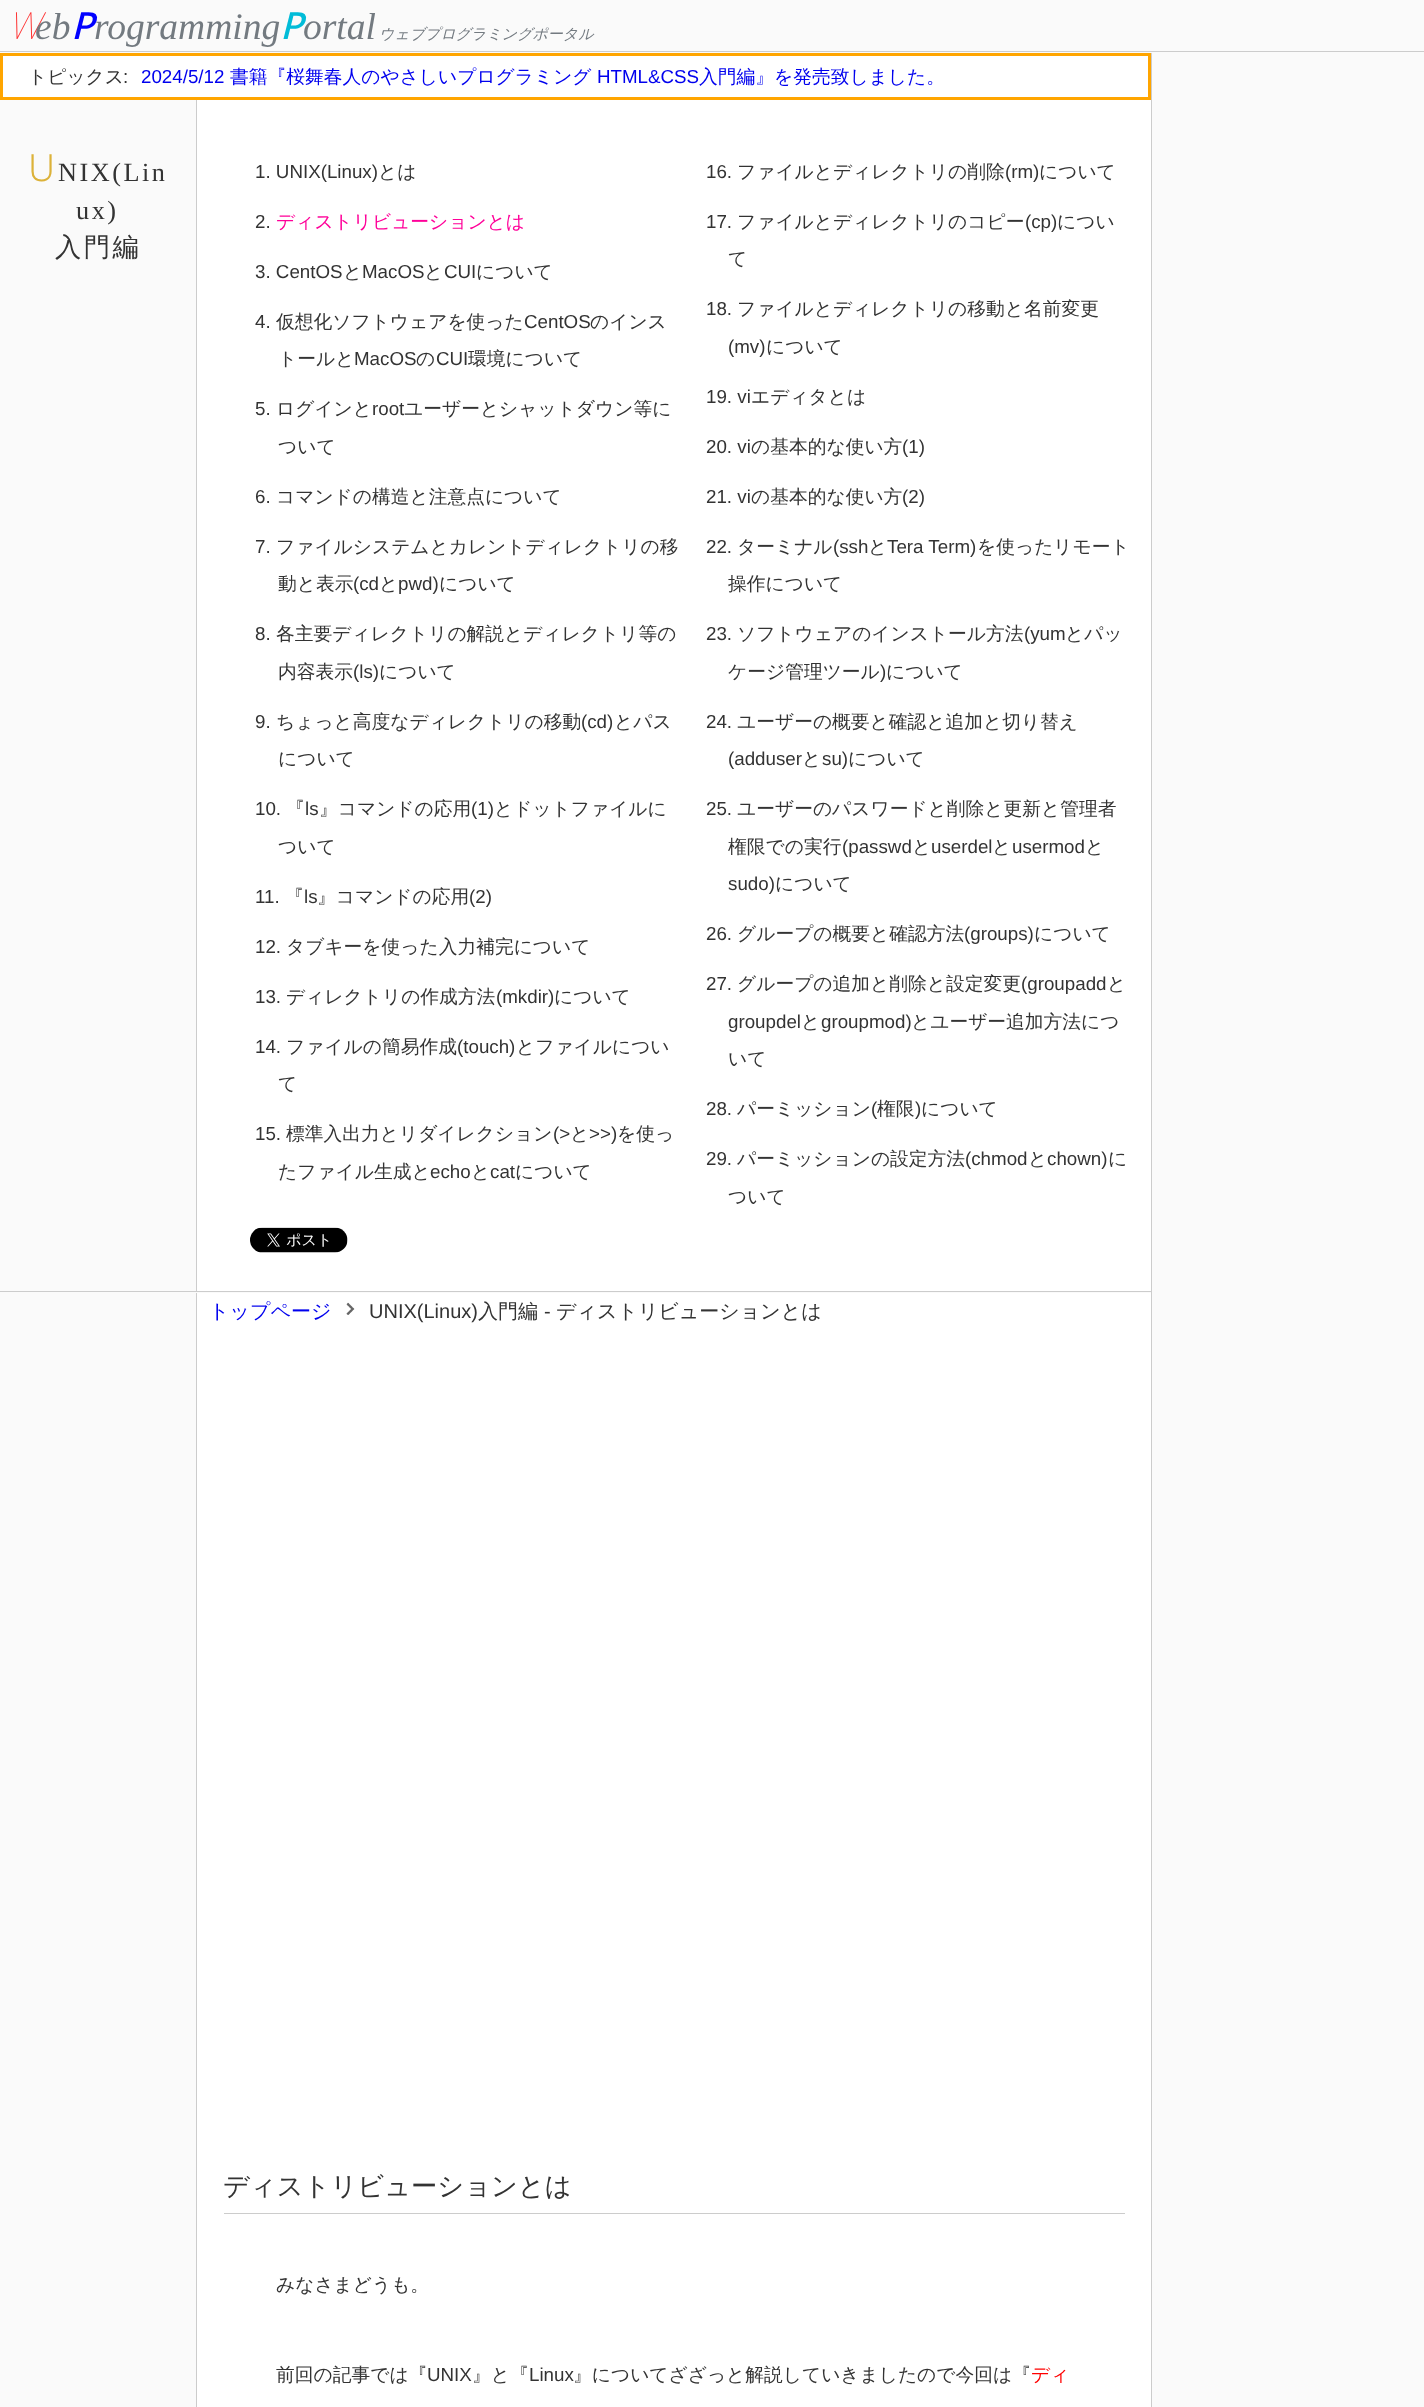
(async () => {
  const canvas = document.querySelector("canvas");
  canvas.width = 1424;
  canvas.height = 2407;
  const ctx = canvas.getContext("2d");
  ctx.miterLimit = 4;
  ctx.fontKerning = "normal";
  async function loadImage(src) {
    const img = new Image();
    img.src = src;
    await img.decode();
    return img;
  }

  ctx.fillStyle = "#fafafa";
  ctx.fillRect(0, 0, 1424, 2407);
  ctx.fillStyle = "#cccccc";
  ctx.fillRect(0, 51, 1424, 1);
  ctx.fillRect(1151, 53, 1, 2354);
  ctx.fillStyle = "#ffffff";
  ctx.beginPath();
  ctx.rect(1.5, 54.5, 1148, 44);
  ctx.fill();
  ctx.strokeStyle = "#ffa500";
  ctx.lineWidth = 3;
  ctx.stroke();
  for (const [x, y, w, h, color] of [
    [0, 1291, 1151, 1, "#cccccc"],
    [197, 100, 954, 1191, "#ffffff"],
    [196, 100, 1, 1191, "#cccccc"],
  ]) {
    ctx.fillStyle = color;
    ctx.fillRect(x, y, w, h);
  }
  ctx.drawImage(await loadImage("img/1.png"), 250, 1227, 98, 26);
  ctx.fillStyle = "#ffffff";
  ctx.fillRect(197, 1293, 954, 1114);
  ctx.fillStyle = "#cccccc";
  ctx.fillRect(196, 1293, 1, 1114);
  ctx.drawImage(await loadImage("img/2.png"), 346, 1302, 9, 13);
  ctx.fillRect(224, 2213, 901, 1);
  ctx.font = "italic 100 37.5px Noto Sans";
  ctx.fillStyle = "#fe3535";
  ctx.fillText("W", 8, 39);
  ctx.font = "italic 37.5px Liberation Serif";
  ctx.fillStyle = "#737a80";
  ctx.fillText("eb", 35, 39);
  ctx.font = "italic 500 37.5px Noto Sans";
  ctx.fillStyle = "#0000ff";
  ctx.fillText("P", 71, 39);
  ctx.font = "italic 37.5px Liberation Serif";
  ctx.fillStyle = "#737a80";
  ctx.fillText("rogramming", 94, 39);
  ctx.font = "italic 500 37.5px Noto Sans";
  ctx.fillStyle = "#01bcd8";
  ctx.fillText("P", 280, 39);
  ctx.font = "italic 37.5px Liberation Serif";
  ctx.fillStyle = "#737a80";
  ctx.fillText("ortal", 303, 39);
  ctx.font = "italic 500 15px WenQuanYi Zen Hei";
  ctx.fillText("ウェブプログラミングポータル", 379, 39);
  ctx.font = "500 18.75px WenQuanYi Zen Hei";
  ctx.fillStyle = "#333333";
  ctx.fillText("トピックス", 28, 83);
  ctx.font = "18.75px Liberation Sans";
  ctx.fillText(":", 123, 83);
  ctx.fillStyle = "#0000ee";
  ctx.fillText("2024/5/12", 141, 83);
  ctx.font = "500 18.75px WenQuanYi Zen Hei";
  ctx.fillText("書籍『桜舞春人のやさしいプログラミング", 230, 83);
  ctx.font = "18.75px Liberation Sans";
  ctx.fillText("HTML&CSS", 597, 83);
  ctx.font = "500 18.75px WenQuanYi Zen Hei";
  ctx.fillText("入門編』を発売致しました。", 699, 83);
  ctx.letterSpacing = "2.5px";
  ctx.font = "300 37.5px Noto Sans";
  ctx.fillStyle = "#dcb239";
  ctx.fillText("U", 28, 181);
  ctx.font = "26.25px Liberation Serif";
  ctx.fillStyle = "#333333";
  ctx.fillText("NIX(Lin", 58, 181);
  ctx.fillText("ux)", 76, 219);
  ctx.font = "500 26.25px WenQuanYi Zen Hei";
  ctx.fillText("入門編", 55, 256);
  ctx.letterSpacing = "0px";
  ctx.font = "18.75px Liberation Sans";
  ctx.fillText("1. UNIX(Linux)", 255, 178);
  ctx.font = "500 18.75px WenQuanYi Zen Hei";
  ctx.fillText("とは", 378, 178);
  ctx.font = "18.75px Liberation Sans";
  ctx.fillText("2.", 255, 228);
  ctx.font = "500 18.75px WenQuanYi Zen Hei";
  ctx.fillStyle = "#ff0099";
  ctx.fillText("ディストリビューションとは", 276, 228);
  ctx.font = "18.75px Liberation Sans";
  ctx.fillStyle = "#333333";
  ctx.fillText("3. CentOS", 255, 278);
  ctx.font = "500 18.75px WenQuanYi Zen Hei";
  ctx.fillText("と", 343, 278);
  ctx.font = "18.75px Liberation Sans";
  ctx.fillText("MacOS", 362, 278);
  ctx.font = "500 18.75px WenQuanYi Zen Hei";
  ctx.fillText("と", 424, 278);
  ctx.font = "18.75px Liberation Sans";
  ctx.fillText("CUI", 444, 278);
  ctx.font = "500 18.75px WenQuanYi Zen Hei";
  ctx.fillText("について", 476, 278);
  ctx.font = "18.75px Liberation Sans";
  ctx.fillText("4.", 255, 328);
  ctx.font = "500 18.75px WenQuanYi Zen Hei";
  ctx.fillText("仮想化ソフトウェアを使った", 276, 328);
  ctx.font = "18.75px Liberation Sans";
  ctx.fillText("CentOS", 524, 328);
  ctx.font = "500 18.75px WenQuanYi Zen Hei";
  ctx.fillText("のインス", 590, 328);
  ctx.fillText("トールと", 278, 365);
  ctx.font = "18.75px Liberation Sans";
  ctx.fillText("MacOS", 354, 365);
  ctx.font = "500 18.75px WenQuanYi Zen Hei";
  ctx.fillText("の", 416, 365);
  ctx.font = "18.75px Liberation Sans";
  ctx.fillText("CUI", 436, 365);
  ctx.font = "500 18.75px WenQuanYi Zen Hei";
  ctx.fillText("環境について", 468, 365);
  ctx.font = "18.75px Liberation Sans";
  ctx.fillText("5.", 255, 415);
  ctx.font = "500 18.75px WenQuanYi Zen Hei";
  ctx.fillText("ログインと", 276, 415);
  ctx.font = "18.75px Liberation Sans";
  ctx.fillText("root", 372, 415);
  ctx.font = "500 18.75px WenQuanYi Zen Hei";
  ctx.fillText("ユーザーとシャットダウン等に", 404, 415);
  ctx.fillText("ついて", 278, 453);
  ctx.font = "18.75px Liberation Sans";
  ctx.fillText("6.", 255, 503);
  ctx.font = "500 18.75px WenQuanYi Zen Hei";
  ctx.fillText("コマンドの構造と注意点について", 276, 503);
  ctx.font = "18.75px Liberation Sans";
  ctx.fillText("7.", 255, 553);
  ctx.font = "500 18.75px WenQuanYi Zen Hei";
  ctx.fillText("ファイルシステムとカレントディレクトリの移", 276, 553);
  ctx.fillText("動と表示", 278, 590);
  ctx.font = "18.75px Liberation Sans";
  ctx.fillText("(cd", 353, 590);
  ctx.font = "500 18.75px WenQuanYi Zen Hei";
  ctx.fillText("と", 379, 590);
  ctx.font = "18.75px Liberation Sans";
  ctx.fillText("pwd)", 398, 590);
  ctx.font = "500 18.75px WenQuanYi Zen Hei";
  ctx.fillText("について", 439, 590);
  ctx.font = "18.75px Liberation Sans";
  ctx.fillText("8.", 255, 640);
  ctx.font = "500 18.75px WenQuanYi Zen Hei";
  ctx.fillText("各主要ディレクトリの解説とディレクトリ等の", 276, 640);
  ctx.fillText("内容表示", 278, 678);
  ctx.font = "18.75px Liberation Sans";
  ctx.fillText("(ls)", 353, 678);
  ctx.font = "500 18.75px WenQuanYi Zen Hei";
  ctx.fillText("について", 379, 678);
  ctx.font = "18.75px Liberation Sans";
  ctx.fillText("9.", 255, 728);
  ctx.font = "500 18.75px WenQuanYi Zen Hei";
  ctx.fillText("ちょっと高度なディレクトリの移動", 276, 728);
  ctx.font = "18.75px Liberation Sans";
  ctx.fillText("(cd)", 581, 728);
  ctx.font = "500 18.75px WenQuanYi Zen Hei";
  ctx.fillText("とパス", 614, 728);
  ctx.fillText("について", 278, 765);
  ctx.font = "18.75px Liberation Sans";
  ctx.fillText("10.", 255, 815);
  ctx.font = "500 18.75px WenQuanYi Zen Hei";
  ctx.fillText("『", 286, 815);
  ctx.font = "18.75px Liberation Sans";
  ctx.fillText("ls", 305, 815);
  ctx.font = "500 18.75px WenQuanYi Zen Hei";
  ctx.fillText("』コマンドの応用", 319, 815);
  ctx.font = "18.75px Liberation Sans";
  ctx.fillText("(1)", 471, 815);
  ctx.font = "500 18.75px WenQuanYi Zen Hei";
  ctx.fillText("とドットファイルに", 494, 815);
  ctx.fillText("ついて", 278, 853);
  ctx.font = "18.75px Liberation Sans";
  ctx.fillText("11.", 255, 903);
  ctx.font = "500 18.75px WenQuanYi Zen Hei";
  ctx.fillText("『", 285, 903);
  ctx.font = "18.75px Liberation Sans";
  ctx.fillText("ls", 304, 903);
  ctx.font = "500 18.75px WenQuanYi Zen Hei";
  ctx.fillText("』コマンドの応用", 317, 903);
  ctx.font = "18.75px Liberation Sans";
  ctx.fillText("(2)", 469, 903);
  ctx.fillText("12.", 255, 953);
  ctx.font = "500 18.75px WenQuanYi Zen Hei";
  ctx.fillText("タブキーを使った入力補完について", 286, 953);
  ctx.font = "18.75px Liberation Sans";
  ctx.fillText("13.", 255, 1003);
  ctx.font = "500 18.75px WenQuanYi Zen Hei";
  ctx.fillText("ディレクトリの作成方法", 286, 1003);
  ctx.font = "18.75px Liberation Sans";
  ctx.fillText("(mkdir)", 496, 1003);
  ctx.font = "500 18.75px WenQuanYi Zen Hei";
  ctx.fillText("について", 554, 1003);
  ctx.font = "18.75px Liberation Sans";
  ctx.fillText("14.", 255, 1053);
  ctx.font = "500 18.75px WenQuanYi Zen Hei";
  ctx.fillText("ファイルの簡易作成", 286, 1053);
  ctx.font = "18.75px Liberation Sans";
  ctx.fillText("(touch)", 457, 1053);
  ctx.font = "500 18.75px WenQuanYi Zen Hei";
  ctx.fillText("とファイルについ", 516, 1053);
  ctx.fillText("て", 278, 1090);
  ctx.font = "18.75px Liberation Sans";
  ctx.fillText("15.", 255, 1140);
  ctx.font = "500 18.75px WenQuanYi Zen Hei";
  ctx.fillText("標準入出力とリダイレクション", 286, 1140);
  ctx.font = "18.75px Liberation Sans";
  ctx.fillText("(>", 553, 1140);
  ctx.font = "500 18.75px WenQuanYi Zen Hei";
  ctx.fillText("と", 570, 1140);
  ctx.font = "18.75px Liberation Sans";
  ctx.fillText(">>)", 589, 1140);
  ctx.font = "500 18.75px WenQuanYi Zen Hei";
  ctx.fillText("を使っ", 617, 1140);
  ctx.fillText("たファイル生成と", 278, 1178);
  ctx.font = "18.75px Liberation Sans";
  ctx.fillText("echo", 430, 1178);
  ctx.font = "500 18.75px WenQuanYi Zen Hei";
  ctx.fillText("と", 471, 1178);
  ctx.font = "18.75px Liberation Sans";
  ctx.fillText("cat", 490, 1178);
  ctx.font = "500 18.75px WenQuanYi Zen Hei";
  ctx.fillText("について", 515, 1178);
  ctx.font = "18.75px Liberation Sans";
  ctx.fillText("16.", 706, 178);
  ctx.font = "500 18.75px WenQuanYi Zen Hei";
  ctx.fillText("ファイルとディレクトリの削除", 737, 178);
  ctx.font = "18.75px Liberation Sans";
  ctx.fillText("(rm)", 1005, 178);
  ctx.font = "500 18.75px WenQuanYi Zen Hei";
  ctx.fillText("について", 1039, 178);
  ctx.font = "18.75px Liberation Sans";
  ctx.fillText("17.", 706, 228);
  ctx.font = "500 18.75px WenQuanYi Zen Hei";
  ctx.fillText("ファイルとディレクトリのコピー", 737, 228);
  ctx.font = "18.75px Liberation Sans";
  ctx.fillText("(cp)", 1025, 228);
  ctx.font = "500 18.75px WenQuanYi Zen Hei";
  ctx.fillText("につい", 1057, 228);
  ctx.fillText("て", 728, 265);
  ctx.font = "18.75px Liberation Sans";
  ctx.fillText("18.", 706, 315);
  ctx.font = "500 18.75px WenQuanYi Zen Hei";
  ctx.fillText("ファイルとディレクトリの移動と名前変更", 737, 315);
  ctx.font = "18.75px Liberation Sans";
  ctx.fillText("(mv)", 728, 353);
  ctx.font = "500 18.75px WenQuanYi Zen Hei";
  ctx.fillText("について", 766, 353);
  ctx.font = "18.75px Liberation Sans";
  ctx.fillText("19. vi", 706, 403);
  ctx.font = "500 18.75px WenQuanYi Zen Hei";
  ctx.fillText("エディタとは", 751, 403);
  ctx.font = "18.75px Liberation Sans";
  ctx.fillText("20. vi", 706, 453);
  ctx.font = "500 18.75px WenQuanYi Zen Hei";
  ctx.fillText("の基本的な使い方", 751, 453);
  ctx.font = "18.75px Liberation Sans";
  ctx.fillText("(1)", 902, 453);
  ctx.fillText("21. vi", 706, 503);
  ctx.font = "500 18.75px WenQuanYi Zen Hei";
  ctx.fillText("の基本的な使い方", 751, 503);
  ctx.font = "18.75px Liberation Sans";
  ctx.fillText("(2)", 902, 503);
  ctx.fillText("22.", 706, 553);
  ctx.font = "500 18.75px WenQuanYi Zen Hei";
  ctx.fillText("ターミナル", 737, 553);
  ctx.font = "18.75px Liberation Sans";
  ctx.fillText("(ssh", 833, 553);
  ctx.font = "500 18.75px WenQuanYi Zen Hei";
  ctx.fillText("と", 868, 553);
  ctx.font = "18.75px Liberation Sans";
  ctx.fillText("Tera Term)", 887, 553);
  ctx.font = "500 18.75px WenQuanYi Zen Hei";
  ctx.fillText("を使ったリモート", 977, 553);
  ctx.fillText("操作について", 728, 590);
  ctx.font = "18.75px Liberation Sans";
  ctx.fillText("23.", 706, 640);
  ctx.font = "500 18.75px WenQuanYi Zen Hei";
  ctx.fillText("ソフトウェアのインストール方法", 737, 640);
  ctx.font = "18.75px Liberation Sans";
  ctx.fillText("(yum", 1024, 640);
  ctx.font = "500 18.75px WenQuanYi Zen Hei";
  ctx.fillText("とパッ", 1065, 640);
  ctx.fillText("ケージ管理ツール", 728, 678);
  ctx.font = "18.75px Liberation Sans";
  ctx.fillText(")", 880, 678);
  ctx.font = "500 18.75px WenQuanYi Zen Hei";
  ctx.fillText("について", 886, 678);
  ctx.font = "18.75px Liberation Sans";
  ctx.fillText("24.", 706, 728);
  ctx.font = "500 18.75px WenQuanYi Zen Hei";
  ctx.fillText("ユーザーの概要と確認と追加と切り替え", 737, 728);
  ctx.font = "18.75px Liberation Sans";
  ctx.fillText("(adduser", 728, 765);
  ctx.font = "500 18.75px WenQuanYi Zen Hei";
  ctx.fillText("と", 802, 765);
  ctx.font = "18.75px Liberation Sans";
  ctx.fillText("su)", 822, 765);
  ctx.font = "500 18.75px WenQuanYi Zen Hei";
  ctx.fillText("について", 848, 765);
  ctx.font = "18.75px Liberation Sans";
  ctx.fillText("25.", 706, 815);
  ctx.font = "500 18.75px WenQuanYi Zen Hei";
  ctx.fillText("ユーザーのパスワードと削除と更新と管理者", 737, 815);
  ctx.fillText("権限での実行", 728, 853);
  ctx.font = "18.75px Liberation Sans";
  ctx.fillText("(passwd", 842, 853);
  ctx.font = "500 18.75px WenQuanYi Zen Hei";
  ctx.fillText("と", 912, 853);
  ctx.font = "18.75px Liberation Sans";
  ctx.fillText("userdel", 931, 853);
  ctx.font = "500 18.75px WenQuanYi Zen Hei";
  ctx.fillText("と", 992, 853);
  ctx.font = "18.75px Liberation Sans";
  ctx.fillText("usermod", 1012, 853);
  ctx.font = "500 18.75px WenQuanYi Zen Hei";
  ctx.fillText("と", 1085, 853);
  ctx.font = "18.75px Liberation Sans";
  ctx.fillText("sudo)", 728, 890);
  ctx.font = "500 18.75px WenQuanYi Zen Hei";
  ctx.fillText("について", 775, 890);
  ctx.font = "18.75px Liberation Sans";
  ctx.fillText("26.", 706, 940);
  ctx.font = "500 18.75px WenQuanYi Zen Hei";
  ctx.fillText("グループの概要と確認方法", 737, 940);
  ctx.font = "18.75px Liberation Sans";
  ctx.fillText("(groups)", 964, 940);
  ctx.font = "500 18.75px WenQuanYi Zen Hei";
  ctx.fillText("について", 1034, 940);
  ctx.font = "18.75px Liberation Sans";
  ctx.fillText("27.", 706, 990);
  ctx.font = "500 18.75px WenQuanYi Zen Hei";
  ctx.fillText("グループの追加と削除と設定変更", 737, 990);
  ctx.font = "18.75px Liberation Sans";
  ctx.fillText("(groupadd", 1021, 990);
  ctx.font = "500 18.75px WenQuanYi Zen Hei";
  ctx.fillText("と", 1107, 990);
  ctx.font = "18.75px Liberation Sans";
  ctx.fillText("groupdel", 728, 1028);
  ctx.font = "500 18.75px WenQuanYi Zen Hei";
  ctx.fillText("と", 801, 1028);
  ctx.font = "18.75px Liberation Sans";
  ctx.fillText("groupmod)", 821, 1028);
  ctx.font = "500 18.75px WenQuanYi Zen Hei";
  ctx.fillText("とユーザー追加方法につ", 911, 1028);
  ctx.fillText("いて", 728, 1065);
  ctx.font = "18.75px Liberation Sans";
  ctx.fillText("28.", 706, 1115);
  ctx.font = "500 18.75px WenQuanYi Zen Hei";
  ctx.fillText("パーミッション", 737, 1115);
  ctx.font = "18.75px Liberation Sans";
  ctx.fillText("(", 871, 1115);
  ctx.font = "500 18.75px WenQuanYi Zen Hei";
  ctx.fillText("権限", 877, 1115);
  ctx.font = "18.75px Liberation Sans";
  ctx.fillText(")", 915, 1115);
  ctx.font = "500 18.75px WenQuanYi Zen Hei";
  ctx.fillText("について", 921, 1115);
  ctx.font = "18.75px Liberation Sans";
  ctx.fillText("29.", 706, 1165);
  ctx.font = "500 18.75px WenQuanYi Zen Hei";
  ctx.fillText("パーミッションの設定方法", 737, 1165);
  ctx.font = "18.75px Liberation Sans";
  ctx.fillText("(chmod", 965, 1165);
  ctx.font = "500 18.75px WenQuanYi Zen Hei";
  ctx.fillText("と", 1028, 1165);
  ctx.font = "18.75px Liberation Sans";
  ctx.fillText("chown)", 1047, 1165);
  ctx.font = "500 18.75px WenQuanYi Zen Hei";
  ctx.fillText("に", 1108, 1165);
  ctx.fillText("ついて", 728, 1203);
  ctx.font = "500 20px WenQuanYi Zen Hei";
  ctx.fillStyle = "#0000ee";
  ctx.fillText("トップページ", 209, 1318);
  ctx.font = "20px Liberation Sans";
  ctx.fillStyle = "#333333";
  ctx.fillText("UNIX(Linux)", 369, 1318);
  ctx.font = "500 20px WenQuanYi Zen Hei";
  ctx.fillText("入門編", 478, 1318);
  ctx.font = "20px Liberation Sans";
  ctx.fillText("-", 544, 1318);
  ctx.font = "500 20px WenQuanYi Zen Hei";
  ctx.fillText("ディストリビューションとは", 556, 1318);
  ctx.font = "500 26.25px WenQuanYi Zen Hei";
  ctx.fillText("ディストリビューションとは", 223, 2195);
  ctx.font = "500 18.75px WenQuanYi Zen Hei";
  ctx.fillText("みなさまどうも。", 276, 2291);
  ctx.fillText("前回の記事では『", 276, 2381);
  ctx.font = "18.75px Liberation Sans";
  ctx.fillText("UNIX", 427, 2381);
  ctx.font = "500 18.75px WenQuanYi Zen Hei";
  ctx.fillText("』と『", 472, 2381);
  ctx.font = "18.75px Liberation Sans";
  ctx.fillText("Linux", 529, 2381);
  ctx.font = "500 18.75px WenQuanYi Zen Hei";
  ctx.fillText("』についてざざっと解説していきましたので今回は『", 573, 2381);
  ctx.fillStyle = "#ff0000";
  ctx.fillText("ディ", 1031, 2381);
})();
